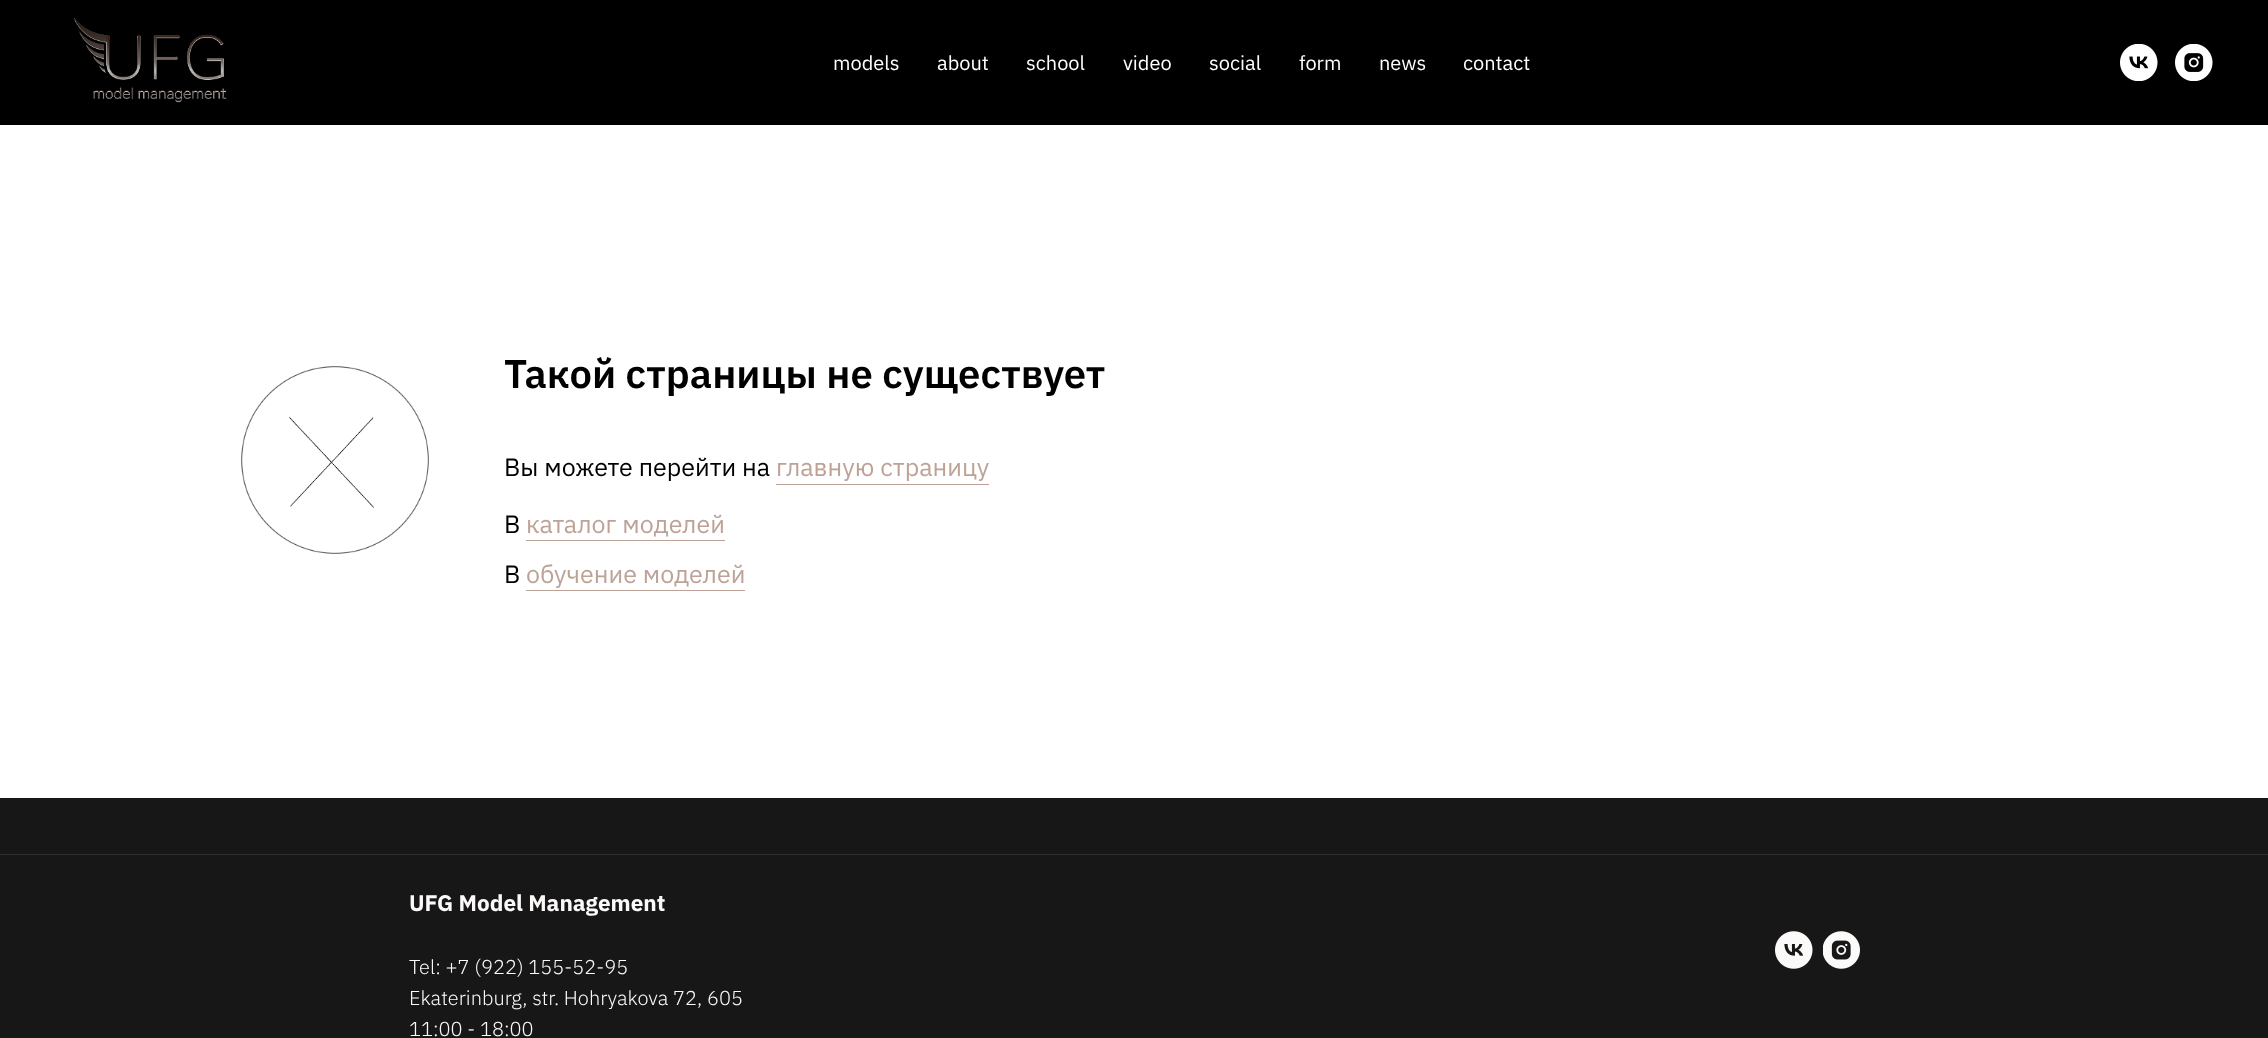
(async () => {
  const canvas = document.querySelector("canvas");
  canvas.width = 2268;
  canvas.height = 1038;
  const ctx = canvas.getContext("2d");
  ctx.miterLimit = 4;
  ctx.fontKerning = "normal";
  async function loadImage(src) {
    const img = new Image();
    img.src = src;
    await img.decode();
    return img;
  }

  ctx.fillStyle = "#ffffff";
  ctx.fillRect(0, 0, 2268, 1038);
  ctx.fillStyle = "#000000";
  ctx.fillRect(0, 0, 2268, 125);
  ctx.drawImage(await loadImage("img/1.png"), 73, 18, 154, 85);
  ctx.drawImage(await loadImage("img/2.png"), 2120, 44, 38, 37);
  ctx.drawImage(await loadImage("img/3.png"), 2175, 44, 38, 37);
  ctx.drawImage(await loadImage("img/4.png"), 241, 366, 188, 188);
  for (const [x, y, w, h, color] of [
    [776, 484, 213, 1, "#bda297"],
    [526, 540, 199, 1, "#bda297"],
    [526, 590, 219, 1, "#bda297"],
    [0, 798, 2268, 240, "#171717"],
    [0, 854, 2268, 1, "#2e2e2e"],
  ]) {
    ctx.fillStyle = color;
    ctx.fillRect(x, y, w, h);
  }
  ctx.drawImage(await loadImage("img/5.png"), 1775, 931, 38, 38);
  ctx.drawImage(await loadImage("img/6.png"), 1823, 931, 37, 38);
  ctx.font = "20px IBM Plex Sans";
  ctx.fillStyle = "#ffffff";
  for (const [text, x, y] of [
    ["models", 833, 70],
    ["about", 937, 70],
    ["school", 1026, 70],
    ["video", 1123, 70],
    ["social", 1209, 70],
    ["form", 1299, 70],
    ["news", 1379, 70],
    ["contact", 1463, 70],
  ]) {
    ctx.fillText(text, x, y);
  }
  ctx.font = "600 40px IBM Plex Sans";
  ctx.fillStyle = "#000000";
  ctx.fillText("Такой страницы не существует", 504, 388);
  ctx.font = "25px IBM Plex Sans";
  ctx.fillText("Вы можете перейти на", 504, 476);
  ctx.fillStyle = "#bda297";
  ctx.fillText("главную страницу", 776, 476);
  ctx.fillStyle = "#000000";
  ctx.fillText("В", 504, 533);
  ctx.fillStyle = "#bda297";
  ctx.fillText("каталог моделей", 526, 533);
  ctx.fillStyle = "#000000";
  ctx.fillText("В", 504, 583);
  ctx.fillStyle = "#bda297";
  ctx.fillText("обучение моделей", 526, 583);
  ctx.font = "bold 22.5px IBM Plex Sans";
  ctx.fillStyle = "#fcf9f9";
  ctx.fillText("UFG Model Management", 409, 911);
  ctx.font = "300 20px IBM Plex Sans";
  for (const [text, x, y] of [
    ["Tel: +7 (922) 155-52-95", 409, 974],
    ["Ekaterinburg, str. Hohryakova 72, 605", 409, 1005],
    ["11:00 - 18:00", 409, 1036],
  ]) {
    ctx.fillText(text, x, y);
  }
})();
